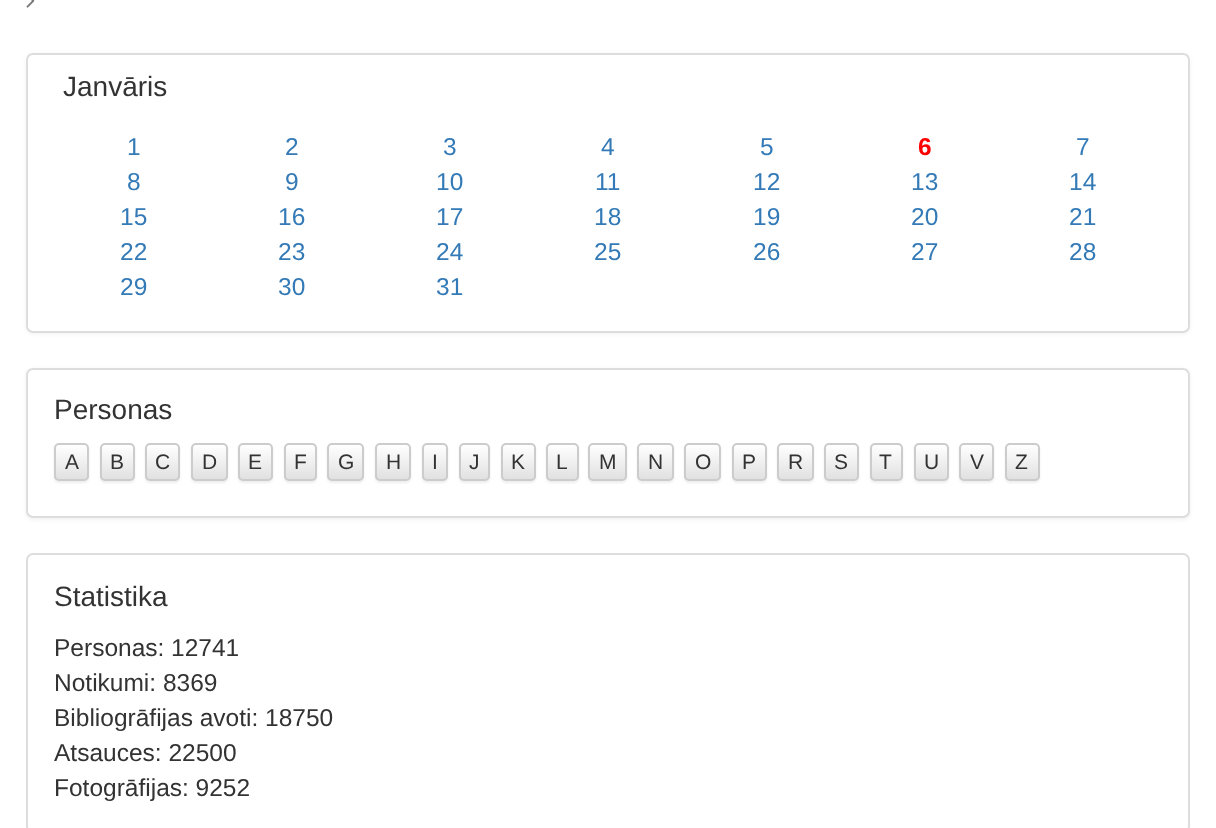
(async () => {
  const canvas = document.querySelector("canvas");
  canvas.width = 1216;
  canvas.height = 828;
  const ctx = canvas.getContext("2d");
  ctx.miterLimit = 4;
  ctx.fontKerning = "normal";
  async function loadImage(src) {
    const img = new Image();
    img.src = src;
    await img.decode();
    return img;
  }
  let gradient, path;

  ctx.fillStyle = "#ffffff";
  ctx.fillRect(0, 0, 1216, 828);
  ctx.drawImage(await loadImage("img/1.png"), 26, 0, 9, 8);
  ctx.fillStyle = "rgba(0, 0, 0, 0.05)";
  ctx.filter = "blur(2px)";
  ctx.beginPath();
  ctx.roundRect(26, 54, 1164, 280, 7);
  ctx.fill();
  ctx.filter = "none";
  ctx.fillStyle = "#ffffff";
  ctx.beginPath();
  ctx.roundRect(27, 54, 1162, 278, 6);
  ctx.fill();
  ctx.strokeStyle = "#dddddd";
  ctx.lineWidth = 2;
  ctx.stroke();
  ctx.fillStyle = "rgba(0, 0, 0, 0.05)";
  ctx.filter = "blur(2px)";
  ctx.beginPath();
  ctx.roundRect(26, 369, 1164, 151, 7);
  ctx.fill();
  ctx.filter = "none";
  ctx.fillStyle = "#ffffff";
  ctx.beginPath();
  ctx.roundRect(27, 369, 1162, 148, 6);
  ctx.fill();
  ctx.stroke();
  ctx.fillStyle = "rgba(0, 0, 0, 0.07)";
  ctx.filter = "blur(1px)";
  ctx.beginPath();
  ctx.roundRect(54, 445, 35, 38, 5);
  ctx.fill();
  ctx.filter = "none";
  ctx.save();
  ctx.beginPath();
  ctx.roundRect(54, 443, 35, 38, 5);
  ctx.clip();
  gradient = ctx.createLinearGradient(72, 445, 72, 480);
  gradient.addColorStop(0, "#ffffff");
  gradient.addColorStop(1, "#e0e0e0");
  ctx.fillStyle = gradient;
  ctx.fillRect(54, 445, 35, 35);
  ctx.restore();
  ctx.beginPath();
  ctx.roundRect(55, 444, 33, 36, 4);
  ctx.strokeStyle = "#cccccc";
  ctx.stroke();
  ctx.filter = "blur(1px)";
  ctx.beginPath();
  ctx.roundRect(100, 445, 35, 38, 5);
  ctx.fill();
  ctx.filter = "none";
  ctx.save();
  ctx.beginPath();
  ctx.roundRect(100, 443, 35, 38, 5);
  ctx.clip();
  gradient = ctx.createLinearGradient(117, 445, 117, 480);
  gradient.addColorStop(0, "#ffffff");
  gradient.addColorStop(1, "#e0e0e0");
  ctx.fillStyle = gradient;
  ctx.fillRect(100, 445, 35, 35);
  ctx.restore();
  ctx.beginPath();
  ctx.roundRect(101, 444, 33, 36, 4);
  ctx.stroke();
  ctx.filter = "blur(1px)";
  ctx.beginPath();
  ctx.roundRect(145, 445, 35, 38, 5);
  ctx.fill();
  ctx.filter = "none";
  ctx.save();
  ctx.beginPath();
  ctx.roundRect(145, 443, 35, 38, 5);
  ctx.clip();
  gradient = ctx.createLinearGradient(163, 445, 163, 480);
  gradient.addColorStop(0, "#ffffff");
  gradient.addColorStop(1, "#e0e0e0");
  ctx.fillStyle = gradient;
  ctx.fillRect(145, 445, 35, 35);
  ctx.restore();
  ctx.fillStyle = "rgba(255, 255, 255, 0.15)";
  path = new Path2D("M150 446H175.5C179 447 178 453 178 454.5V478.5C179.5 477 179 473.5 179 471.5V462.5C179 443 182 445 163 445H155C150.5 445 147 444.5 147 450C147 448 149 446 150 446Z");
  ctx.fill(path);
  ctx.beginPath();
  ctx.roundRect(146, 444, 33, 36, 4);
  ctx.stroke();
  ctx.fillStyle = "rgba(0, 0, 0, 0.07)";
  ctx.filter = "blur(1px)";
  ctx.beginPath();
  ctx.roundRect(191, 445, 37, 38, 5);
  ctx.fill();
  ctx.filter = "none";
  ctx.save();
  ctx.beginPath();
  ctx.roundRect(191, 443, 37, 38, 5);
  ctx.clip();
  gradient = ctx.createLinearGradient(209, 445, 209, 480);
  gradient.addColorStop(0, "#ffffff");
  gradient.addColorStop(1, "#e0e0e0");
  ctx.fillStyle = gradient;
  ctx.fillRect(191, 445, 37, 35);
  ctx.restore();
  ctx.beginPath();
  ctx.roundRect(192, 444, 35, 36, 4);
  ctx.stroke();
  ctx.filter = "blur(1px)";
  ctx.beginPath();
  ctx.roundRect(238, 445, 35, 38, 5);
  ctx.fill();
  ctx.filter = "none";
  ctx.save();
  ctx.beginPath();
  ctx.roundRect(238, 443, 35, 38, 5);
  ctx.clip();
  gradient = ctx.createLinearGradient(256, 445, 256, 480);
  gradient.addColorStop(0, "#ffffff");
  gradient.addColorStop(1, "#e0e0e0");
  ctx.fillStyle = gradient;
  ctx.fillRect(238, 445, 35, 35);
  ctx.restore();
  ctx.beginPath();
  ctx.roundRect(239, 444, 33, 36, 4);
  ctx.stroke();
  ctx.filter = "blur(1px)";
  ctx.beginPath();
  ctx.roundRect(284, 445, 33, 38, 5);
  ctx.fill();
  ctx.filter = "none";
  ctx.save();
  ctx.beginPath();
  ctx.roundRect(284, 443, 33, 38, 5);
  ctx.clip();
  gradient = ctx.createLinearGradient(300, 445, 300, 480);
  gradient.addColorStop(0, "#ffffff");
  gradient.addColorStop(1, "#e0e0e0");
  ctx.fillStyle = gradient;
  ctx.fillRect(284, 445, 33, 35);
  ctx.restore();
  ctx.beginPath();
  ctx.roundRect(285, 444, 31, 36, 4);
  ctx.stroke();
  ctx.filter = "blur(1px)";
  ctx.beginPath();
  ctx.roundRect(327, 445, 37, 38, 5);
  ctx.fill();
  ctx.filter = "none";
  ctx.save();
  ctx.beginPath();
  ctx.roundRect(327, 443, 37, 38, 5);
  ctx.clip();
  gradient = ctx.createLinearGradient(346, 445, 346, 480);
  gradient.addColorStop(0, "#ffffff");
  gradient.addColorStop(1, "#e0e0e0");
  ctx.fillStyle = gradient;
  ctx.fillRect(327, 445, 37, 35);
  ctx.restore();
  ctx.beginPath();
  ctx.roundRect(328, 444, 35, 36, 4);
  ctx.stroke();
  ctx.filter = "blur(1px)";
  ctx.beginPath();
  ctx.roundRect(375, 445, 36, 38, 5);
  ctx.fill();
  ctx.filter = "none";
  ctx.save();
  ctx.beginPath();
  ctx.roundRect(375, 443, 36, 38, 5);
  ctx.clip();
  gradient = ctx.createLinearGradient(393, 445, 393, 480);
  gradient.addColorStop(0, "#ffffff");
  gradient.addColorStop(1, "#e0e0e0");
  ctx.fillStyle = gradient;
  ctx.fillRect(375, 445, 36, 35);
  ctx.restore();
  ctx.beginPath();
  ctx.roundRect(376, 444, 34, 36, 4);
  ctx.stroke();
  ctx.filter = "blur(1px)";
  ctx.beginPath();
  ctx.roundRect(422, 445, 26, 38, 5);
  ctx.fill();
  ctx.filter = "none";
  ctx.save();
  ctx.beginPath();
  ctx.roundRect(422, 443, 26, 38, 5);
  ctx.clip();
  gradient = ctx.createLinearGradient(435, 445, 435, 480);
  gradient.addColorStop(0, "#ffffff");
  gradient.addColorStop(1, "#e0e0e0");
  ctx.fillStyle = gradient;
  ctx.fillRect(422, 445, 26, 35);
  ctx.restore();
  ctx.beginPath();
  ctx.roundRect(423, 444, 24, 36, 4);
  ctx.stroke();
  ctx.filter = "blur(1px)";
  ctx.beginPath();
  ctx.roundRect(459, 445, 31, 38, 5);
  ctx.fill();
  ctx.filter = "none";
  ctx.save();
  ctx.beginPath();
  ctx.roundRect(459, 443, 31, 38, 5);
  ctx.clip();
  gradient = ctx.createLinearGradient(474, 445, 474, 480);
  gradient.addColorStop(0, "#ffffff");
  gradient.addColorStop(1, "#e0e0e0");
  ctx.fillStyle = gradient;
  ctx.fillRect(459, 445, 31, 35);
  ctx.restore();
  ctx.beginPath();
  ctx.roundRect(460, 444, 29, 36, 4);
  ctx.stroke();
  ctx.filter = "blur(1px)";
  ctx.beginPath();
  ctx.roundRect(501, 445, 35, 38, 5);
  ctx.fill();
  ctx.filter = "none";
  ctx.save();
  ctx.beginPath();
  ctx.roundRect(501, 443, 35, 38, 5);
  ctx.clip();
  gradient = ctx.createLinearGradient(518, 445, 518, 480);
  gradient.addColorStop(0, "#ffffff");
  gradient.addColorStop(1, "#e0e0e0");
  ctx.fillStyle = gradient;
  ctx.fillRect(501, 445, 35, 35);
  ctx.restore();
  ctx.beginPath();
  ctx.roundRect(502, 444, 33, 36, 4);
  ctx.stroke();
  ctx.filter = "blur(1px)";
  ctx.beginPath();
  ctx.roundRect(546, 445, 33, 38, 5);
  ctx.fill();
  ctx.filter = "none";
  ctx.save();
  ctx.beginPath();
  ctx.roundRect(546, 443, 33, 38, 5);
  ctx.clip();
  gradient = ctx.createLinearGradient(563, 445, 563, 480);
  gradient.addColorStop(0, "#ffffff");
  gradient.addColorStop(1, "#e0e0e0");
  ctx.fillStyle = gradient;
  ctx.fillRect(546, 445, 33, 35);
  ctx.restore();
  ctx.beginPath();
  ctx.roundRect(547, 444, 31, 36, 4);
  ctx.stroke();
  ctx.filter = "blur(1px)";
  ctx.beginPath();
  ctx.roundRect(588, 445, 39, 38, 5);
  ctx.fill();
  ctx.filter = "none";
  ctx.save();
  ctx.beginPath();
  ctx.roundRect(588, 443, 39, 38, 5);
  ctx.clip();
  gradient = ctx.createLinearGradient(607, 445, 607, 480);
  gradient.addColorStop(0, "#ffffff");
  gradient.addColorStop(1, "#e0e0e0");
  ctx.fillStyle = gradient;
  ctx.fillRect(588, 445, 39, 35);
  ctx.restore();
  ctx.beginPath();
  ctx.roundRect(589, 444, 37, 36, 4);
  ctx.stroke();
  ctx.filter = "blur(1px)";
  ctx.beginPath();
  ctx.roundRect(637, 445, 37, 38, 5);
  ctx.fill();
  ctx.filter = "none";
  ctx.save();
  ctx.beginPath();
  ctx.roundRect(637, 443, 37, 38, 5);
  ctx.clip();
  gradient = ctx.createLinearGradient(655, 445, 655, 480);
  gradient.addColorStop(0, "#ffffff");
  gradient.addColorStop(1, "#e0e0e0");
  ctx.fillStyle = gradient;
  ctx.fillRect(637, 445, 37, 35);
  ctx.restore();
  ctx.beginPath();
  ctx.roundRect(638, 444, 35, 36, 4);
  ctx.stroke();
  ctx.filter = "blur(1px)";
  ctx.beginPath();
  ctx.roundRect(684, 445, 37, 38, 5);
  ctx.fill();
  ctx.filter = "none";
  ctx.save();
  ctx.beginPath();
  ctx.roundRect(684, 443, 37, 38, 5);
  ctx.clip();
  gradient = ctx.createLinearGradient(703, 445, 703, 480);
  gradient.addColorStop(0, "#ffffff");
  gradient.addColorStop(1, "#e0e0e0");
  ctx.fillStyle = gradient;
  ctx.fillRect(684, 445, 37, 35);
  ctx.restore();
  ctx.beginPath();
  ctx.roundRect(685, 444, 35, 36, 4);
  ctx.stroke();
  ctx.filter = "blur(1px)";
  ctx.beginPath();
  ctx.roundRect(732, 445, 35, 38, 5);
  ctx.fill();
  ctx.filter = "none";
  ctx.save();
  ctx.beginPath();
  ctx.roundRect(732, 443, 35, 38, 5);
  ctx.clip();
  gradient = ctx.createLinearGradient(749, 445, 749, 480);
  gradient.addColorStop(0, "#ffffff");
  gradient.addColorStop(1, "#e0e0e0");
  ctx.fillStyle = gradient;
  ctx.fillRect(732, 445, 35, 35);
  ctx.restore();
  ctx.beginPath();
  ctx.roundRect(733, 444, 33, 36, 4);
  ctx.stroke();
  ctx.filter = "blur(1px)";
  ctx.beginPath();
  ctx.roundRect(777, 445, 37, 38, 5);
  ctx.fill();
  ctx.filter = "none";
  ctx.save();
  ctx.beginPath();
  ctx.roundRect(777, 443, 37, 38, 5);
  ctx.clip();
  gradient = ctx.createLinearGradient(795, 445, 795, 480);
  gradient.addColorStop(0, "#ffffff");
  gradient.addColorStop(1, "#e0e0e0");
  ctx.fillStyle = gradient;
  ctx.fillRect(777, 445, 37, 35);
  ctx.restore();
  ctx.beginPath();
  ctx.roundRect(778, 444, 35, 36, 4);
  ctx.stroke();
  ctx.filter = "blur(1px)";
  ctx.beginPath();
  ctx.roundRect(824, 445, 35, 38, 5);
  ctx.fill();
  ctx.filter = "none";
  ctx.save();
  ctx.beginPath();
  ctx.roundRect(824, 443, 35, 38, 5);
  ctx.clip();
  gradient = ctx.createLinearGradient(842, 445, 842, 480);
  gradient.addColorStop(0, "#ffffff");
  gradient.addColorStop(1, "#e0e0e0");
  ctx.fillStyle = gradient;
  ctx.fillRect(824, 445, 35, 35);
  ctx.restore();
  ctx.beginPath();
  ctx.roundRect(825, 444, 33, 36, 4);
  ctx.stroke();
  ctx.filter = "blur(1px)";
  ctx.beginPath();
  ctx.roundRect(870, 445, 33, 38, 5);
  ctx.fill();
  ctx.filter = "none";
  ctx.save();
  ctx.beginPath();
  ctx.roundRect(870, 443, 33, 38, 5);
  ctx.clip();
  gradient = ctx.createLinearGradient(886, 445, 886, 480);
  gradient.addColorStop(0, "#ffffff");
  gradient.addColorStop(1, "#e0e0e0");
  ctx.fillStyle = gradient;
  ctx.fillRect(870, 445, 33, 35);
  ctx.restore();
  ctx.beginPath();
  ctx.roundRect(871, 444, 31, 36, 4);
  ctx.stroke();
  ctx.filter = "blur(1px)";
  ctx.beginPath();
  ctx.roundRect(914, 445, 35, 38, 5);
  ctx.fill();
  ctx.filter = "none";
  ctx.save();
  ctx.beginPath();
  ctx.roundRect(914, 443, 35, 38, 5);
  ctx.clip();
  gradient = ctx.createLinearGradient(931, 445, 931, 480);
  gradient.addColorStop(0, "#ffffff");
  gradient.addColorStop(1, "#e0e0e0");
  ctx.fillStyle = gradient;
  ctx.fillRect(914, 445, 35, 35);
  ctx.restore();
  ctx.beginPath();
  ctx.roundRect(915, 444, 33, 36, 4);
  ctx.stroke();
  ctx.filter = "blur(1px)";
  ctx.beginPath();
  ctx.roundRect(959, 445, 35, 38, 5);
  ctx.fill();
  ctx.filter = "none";
  ctx.save();
  ctx.beginPath();
  ctx.roundRect(959, 443, 35, 38, 5);
  ctx.clip();
  gradient = ctx.createLinearGradient(977, 445, 977, 480);
  gradient.addColorStop(0, "#ffffff");
  gradient.addColorStop(1, "#e0e0e0");
  ctx.fillStyle = gradient;
  ctx.fillRect(959, 445, 35, 35);
  ctx.restore();
  ctx.beginPath();
  ctx.roundRect(960, 444, 33, 36, 4);
  ctx.stroke();
  ctx.filter = "blur(1px)";
  ctx.beginPath();
  ctx.roundRect(1005, 445, 35, 38, 5);
  ctx.fill();
  ctx.filter = "none";
  ctx.save();
  ctx.beginPath();
  ctx.roundRect(1005, 443, 35, 38, 5);
  ctx.clip();
  gradient = ctx.createLinearGradient(1022, 445, 1022, 480);
  gradient.addColorStop(0, "#ffffff");
  gradient.addColorStop(1, "#e0e0e0");
  ctx.fillStyle = gradient;
  ctx.fillRect(1005, 445, 35, 35);
  ctx.restore();
  ctx.beginPath();
  ctx.roundRect(1006, 444, 33, 36, 4);
  ctx.stroke();
  ctx.beginPath();
  ctx.roundRect(27, 554, 1162, 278, 6);
  ctx.strokeStyle = "#dddddd";
  ctx.stroke();
  ctx.font = "28px Liberation Sans";
  ctx.fillStyle = "#333333";
  ctx.fillText("Janvāris", 63, 96);
  ctx.font = "24.5px Liberation Sans";
  ctx.fillStyle = "#337ab7";
  for (const [text, x, y] of [
    ["1", 127, 155],
    ["2", 285, 155],
    ["3", 443, 155],
    ["4", 601, 155],
    ["5", 760, 155],
  ]) {
    ctx.fillText(text, x, y);
  }
  ctx.font = "bold 24.5px Liberation Sans";
  ctx.fillStyle = "#ff0000";
  ctx.fillText("6", 918, 155);
  ctx.font = "24.5px Liberation Sans";
  ctx.fillStyle = "#337ab7";
  for (const [text, x, y] of [
    ["7", 1076, 155],
    ["8", 127, 190],
    ["9", 285, 190],
    ["10", 436, 190],
    ["11", 595, 190],
    ["12", 753, 190],
    ["13", 911, 190],
    ["14", 1069, 190],
    ["15", 120, 225],
    ["16", 278, 225],
    ["17", 436, 225],
    ["18", 594, 225],
    ["19", 753, 225],
    ["20", 911, 225],
    ["21", 1069, 225],
    ["22", 120, 260],
    ["23", 278, 260],
    ["24", 436, 260],
    ["25", 594, 260],
    ["26", 753, 260],
    ["27", 911, 260],
    ["28", 1069, 260],
    ["29", 120, 295],
    ["30", 278, 295],
    ["31", 436, 295],
  ]) {
    ctx.fillText(text, x, y);
  }
  ctx.font = "28px Liberation Sans";
  ctx.fillStyle = "#333333";
  ctx.fillText("Personas", 54, 419);
  ctx.font = "21px Liberation Sans";
  for (const [text, x, y] of [
    ["A", 65, 469],
    ["B", 110, 469],
    ["C", 155, 469],
    ["D", 202, 469],
    ["E", 248, 469],
    ["F", 294, 469],
    ["G", 338, 469],
    ["H", 386, 469],
    ["I", 432, 469],
    ["J", 469, 469],
    ["K", 511, 469],
    ["L", 556, 469],
    ["M", 599, 469],
    ["N", 648, 469],
    ["O", 695, 469],
    ["P", 742, 469],
    ["R", 788, 469],
    ["S", 834, 469],
    ["T", 879, 469],
    ["U", 924, 469],
    ["V", 970, 469],
    ["Z", 1015, 469],
  ]) {
    ctx.fillText(text, x, y);
  }
  ctx.font = "28px Liberation Sans";
  ctx.fillText("Statistika", 54, 606);
  ctx.font = "24.5px Liberation Sans";
  for (const [text, x, y] of [
    ["Personas: 12741", 54, 656],
    ["Notikumi: 8369", 54, 691],
    ["Bibliogrāfijas avoti: 18750", 54, 726],
    ["Atsauces: 22500", 54, 761],
    ["Fotogrāfijas: 9252", 54, 796],
  ]) {
    ctx.fillText(text, x, y);
  }
})();
